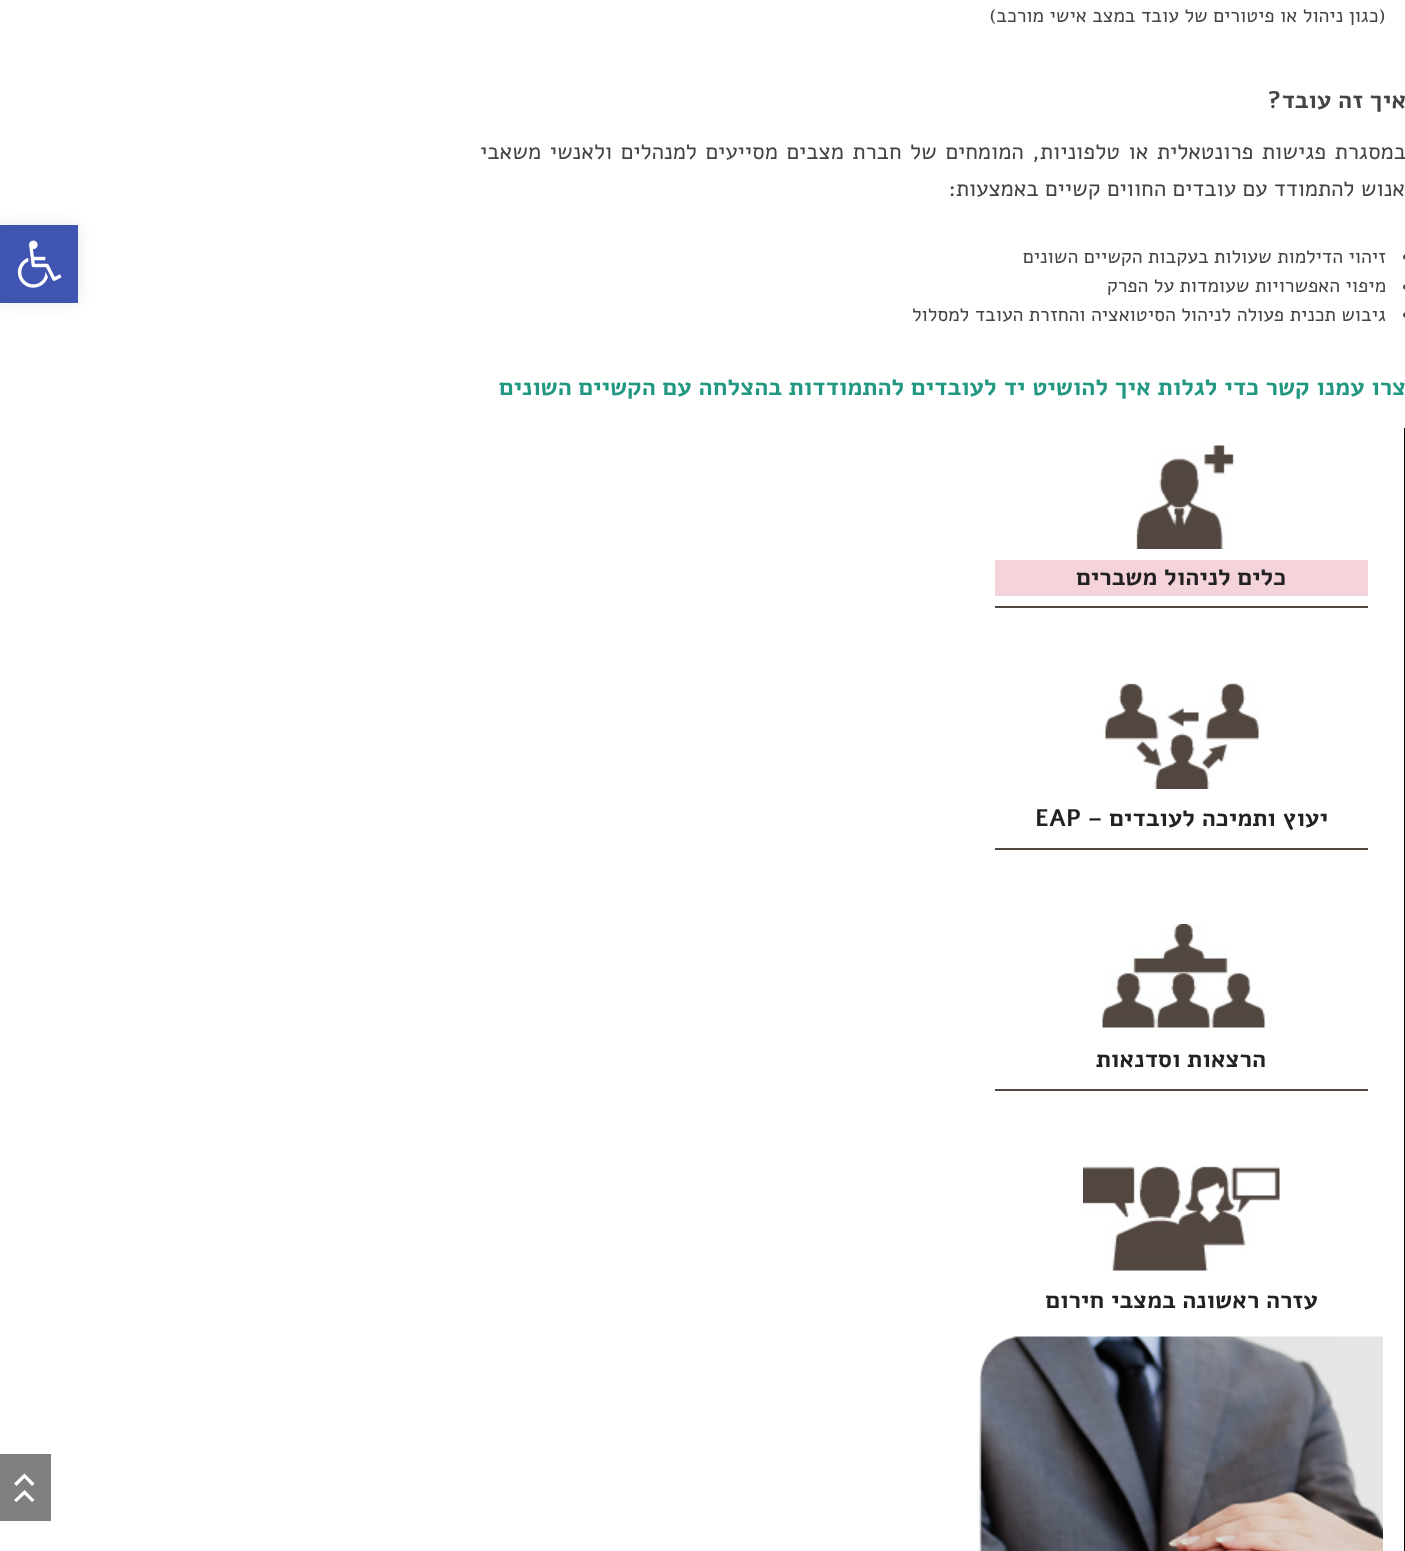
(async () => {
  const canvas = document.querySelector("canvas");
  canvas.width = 1405;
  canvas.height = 1551;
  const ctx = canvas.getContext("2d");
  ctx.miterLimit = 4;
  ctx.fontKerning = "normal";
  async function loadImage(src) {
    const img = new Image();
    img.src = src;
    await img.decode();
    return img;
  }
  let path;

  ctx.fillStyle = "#ffffff";
  ctx.fillRect(0, 0, 1405, 1551);
  ctx.fillStyle = "#444444";
  path = new Path2D("M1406 254V260C1404.5 260 1403 258.5 1403 257C1403 255.5 1404.5 254 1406 254Z");
  ctx.fill(path);
  path = new Path2D("M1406 284V290C1404.5 290 1403 288.5 1403 287C1403 285.5 1404.5 284 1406 284Z");
  ctx.fill(path);
  path = new Path2D("M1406 312V318C1404.5 318 1403 316.5 1403 315C1403 313.5 1404.5 312 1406 312Z");
  ctx.fill(path);
  ctx.fillStyle = "#000000";
  ctx.fillRect(1404, 428, 1, 1123);
  ctx.drawImage(await loadImage("img/1.png"), 1136, 445, 98, 104);
  ctx.fillStyle = "#f5d3db";
  ctx.fillRect(995, 560, 373, 36);
  ctx.fillStyle = "#534741";
  ctx.fillRect(995, 606, 373, 2);
  ctx.drawImage(await loadImage("img/2.png"), 1103, 683, 157, 106);
  ctx.fillRect(995, 848, 373, 2);
  ctx.drawImage(await loadImage("img/3.png"), 1101, 924, 171, 107);
  ctx.fillRect(995, 1089, 373, 2);
  ctx.drawImage(await loadImage("img/4.png"), 1083, 1166, 197, 105);
  ctx.drawImage(await loadImage("img/5.png"), 979, 1336, 404, 215);
  ctx.fillStyle = "rgba(0, 0, 0, 0.1)";
  ctx.filter = "blur(7.5px)";
  ctx.beginPath();
  ctx.rect(0, 225, 78, 78);
  ctx.fill();
  ctx.filter = "none";
  ctx.fillStyle = "#4054b2";
  ctx.fillRect(0, 225, 78, 78);
  ctx.drawImage(await loadImage("img/6.png"), 17, 240, 45, 48);
  ctx.fillStyle = "#808080";
  ctx.fillRect(0, 1454, 51, 67);
  ctx.fillStyle = "#ffffff";
  path = new Path2D("M14 1483.5L24.5 1473.5L34.5 1483.5L32 1486L24.5 1478L16.5 1486ZM14 1500L24.5 1490L34.5 1500L32 1502L24.5 1494.5L16.5 1502Z");
  ctx.fill(path);
  ctx.direction = "rtl";
  ctx.font = "19.5px Alef";
  ctx.fillStyle = "#444444";
  ctx.fillText("(כגון ניהול או פיטורים של עובד במצב אישי מורכב)", 1386, 22);
  ctx.font = "bold 24px Alef";
  ctx.fillText("איך זה עובד?", 1406, 108);
  ctx.wordSpacing = "2.25px";
  ctx.font = "22.5px Alef";
  ctx.fillText("במסגרת פגישות פרונטאלית או טלפוניות, המומחים של חברת מצבים מסייעים למנהלים ולאנשי משאבי", 1406, 159);
  ctx.wordSpacing = "0px";
  ctx.fillText("אנוש להתמודד עם עובדים החווים קשיים באמצעות:", 1405, 196);
  ctx.font = "19.5px Alef";
  for (const [text, x, y] of [
    ["זיהוי הדילמות שעולות בעקבות הקשיים השונים", 1386, 263],
    ["מיפוי האפשרויות שעומדות על הפרק", 1386, 292],
    ["גיבוש תכנית פעולה לניהול הסיטואציה והחזרת העובד למסלול", 1386, 321],
  ]) {
    ctx.fillText(text, x, y);
  }
  ctx.font = "bold 24px Alef";
  ctx.fillStyle = "#229882";
  ctx.fillText("צרו עמנו קשר כדי לגלות איך להושיט יד לעובדים להתמודדות בהצלחה עם הקשיים השונים", 1406, 395);
  ctx.fillStyle = "#222222";
  ctx.fillText("כלים לניהול משברים", 1286, 585);
  ctx.fillText("יעוץ ותמיכה לעובדים –", 1328, 826);
  ctx.direction = "ltr";
  ctx.fillText("EAP", 1035, 826);
  ctx.direction = "rtl";
  ctx.fillText("הרצאות וסדנאות", 1266, 1067);
  ctx.fillText("עזרה ראשונה במצבי חירום", 1318, 1308);
})();
